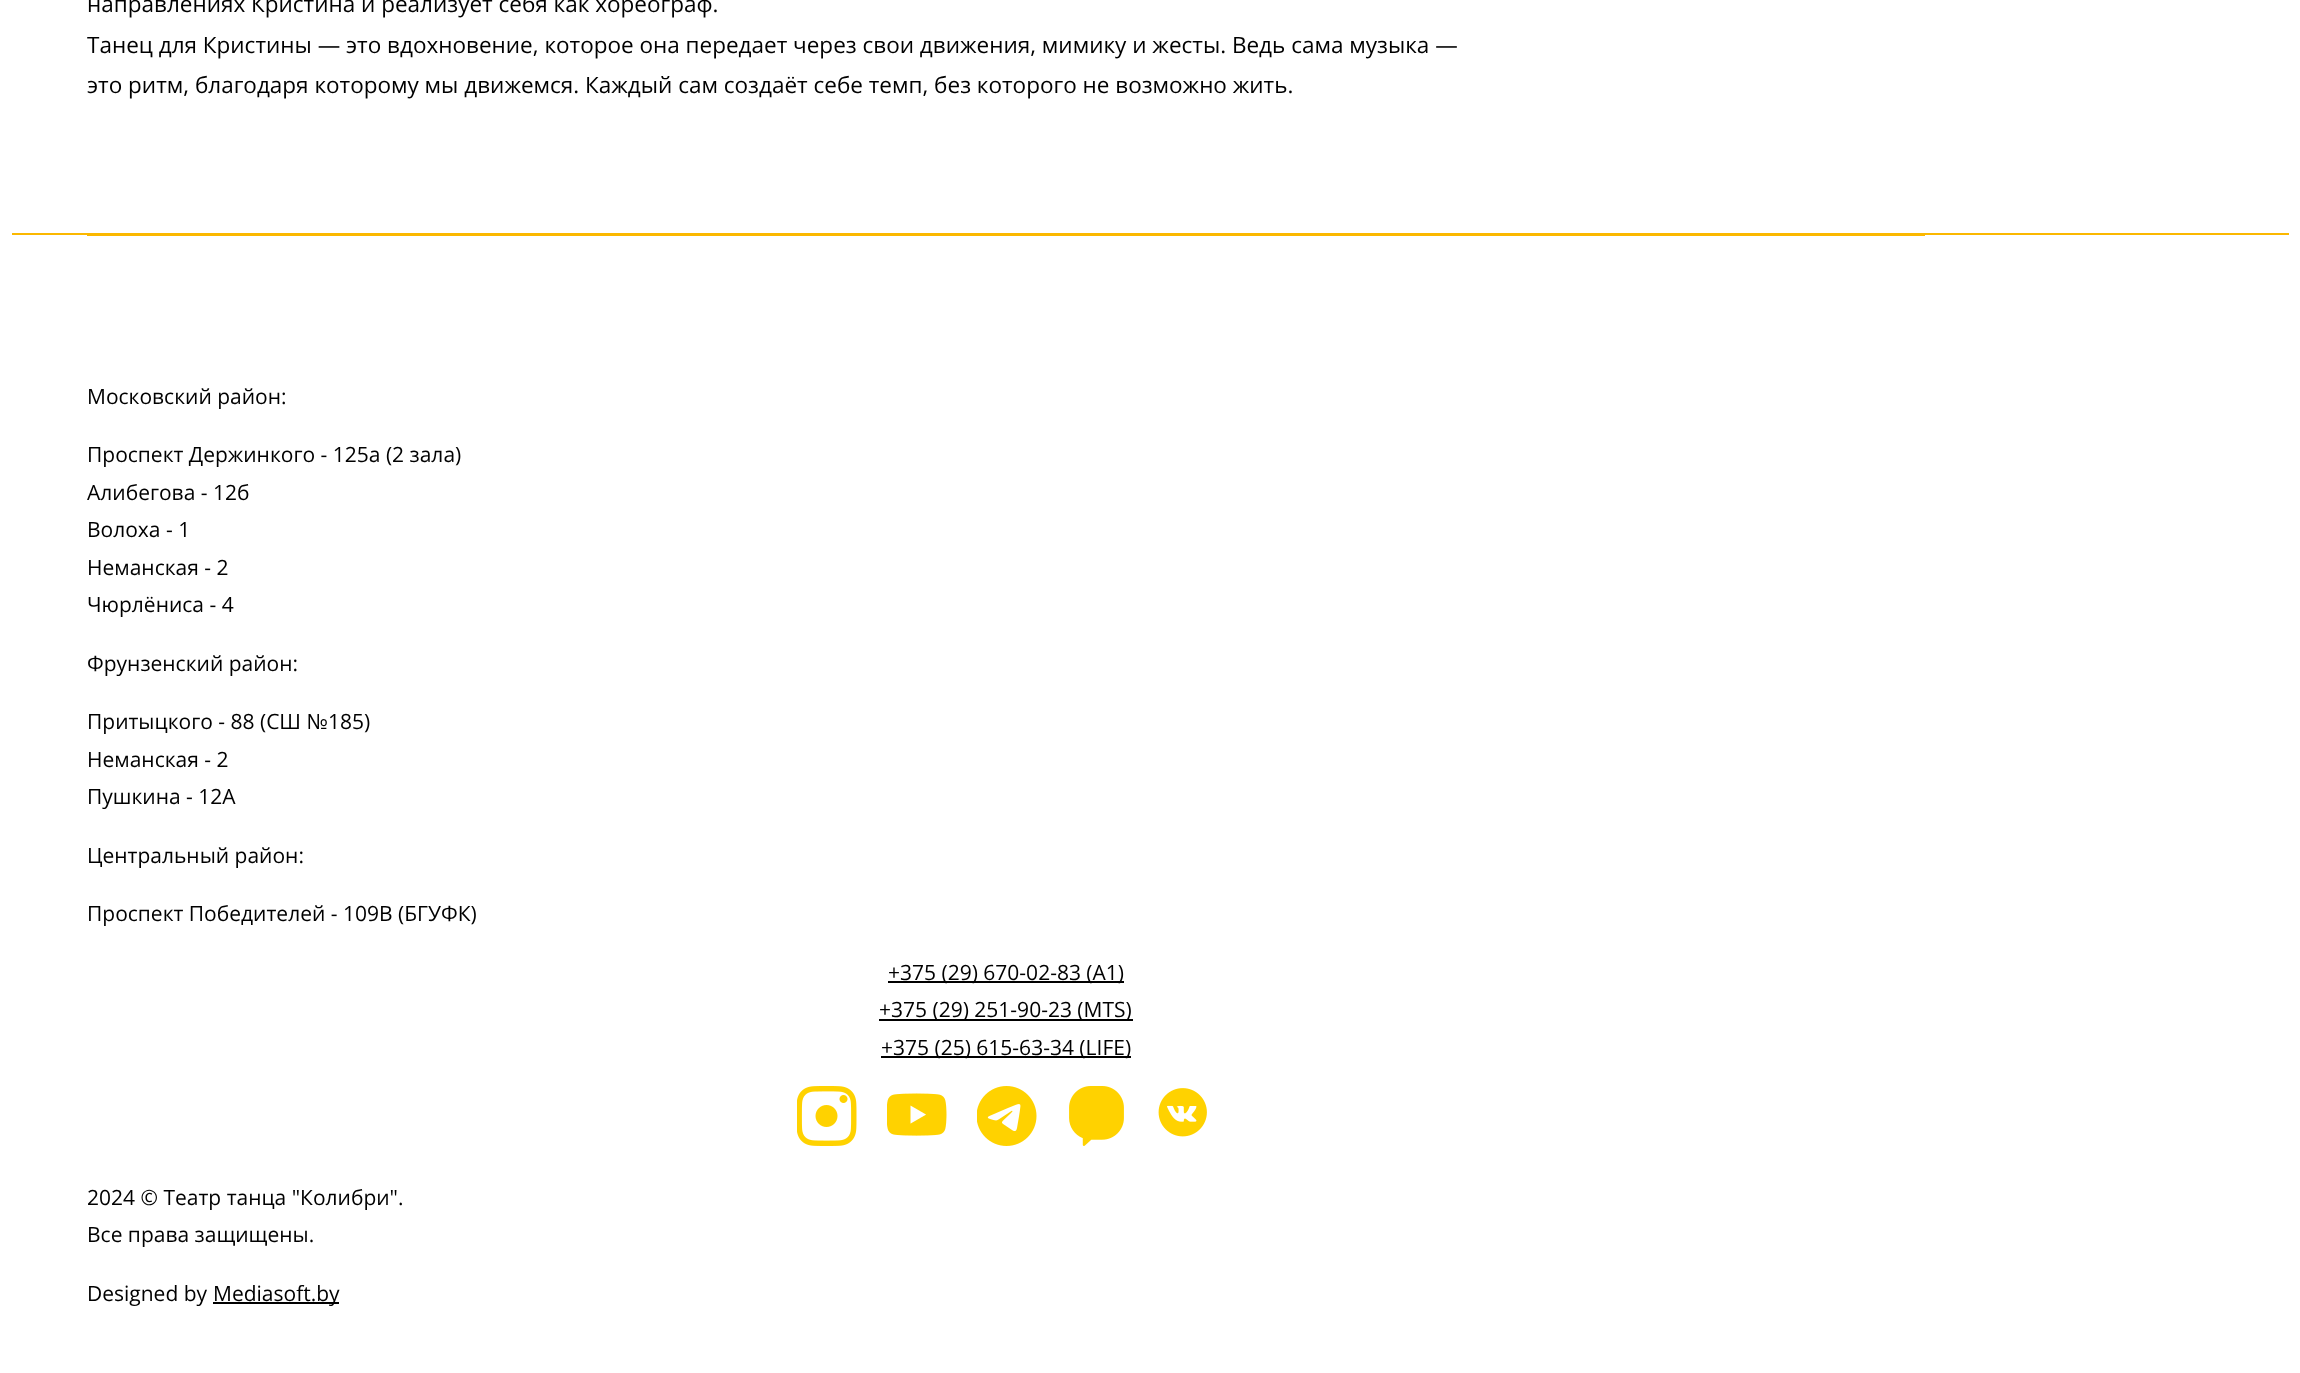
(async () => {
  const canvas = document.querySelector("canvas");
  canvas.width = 2300;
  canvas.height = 1373;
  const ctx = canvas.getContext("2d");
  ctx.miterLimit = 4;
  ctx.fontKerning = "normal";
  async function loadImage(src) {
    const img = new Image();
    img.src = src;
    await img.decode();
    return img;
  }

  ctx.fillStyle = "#ffffff";
  ctx.fillRect(0, 0, 2300, 1373);
  for (const [x, y, w, h, color] of [
    [12, 233, 2277, 2, "#fbb800"],
    [87, 235, 1838, 1, "#fbb800"],
    [888, 981, 236, 2, "#000000"],
    [879, 1019, 254, 2, "#000000"],
    [881, 1056, 250, 2, "#000000"],
  ]) {
    ctx.fillStyle = color;
    ctx.fillRect(x, y, w, h);
  }
  ctx.drawImage(await loadImage("img/1.png"), 797, 1086, 60, 60);
  ctx.drawImage(await loadImage("img/2.png"), 887, 1093, 60, 43);
  ctx.drawImage(await loadImage("img/3.png"), 977, 1086, 60, 60);
  ctx.drawImage(await loadImage("img/4.png"), 1069, 1086, 55, 60);
  ctx.drawImage(await loadImage("img/5.png"), 1158, 1088, 49, 49);
  ctx.fillRect(213, 1302, 126, 2);
  ctx.font = "22.5px Open Sans";
  for (const [text, x, y] of [
    ["направлениях Кристина и реализует себя как хореограф.", 87, 12],
    ["Танец для Кристины — это вдохновение, которое она передает через свои движения, мимику и жесты. Ведь сама музыка —", 87, 53],
    ["это ритм, благодаря которому мы движемся. Каждый сам создаёт себе темп, без которого не возможно жить.", 87, 93],
  ]) {
    ctx.fillText(text, x, y);
  }
  ctx.font = "21px Open Sans";
  for (const [text, x, y] of [
    ["Московский район:", 87, 404],
    ["Проспект Держинкого - 125а (2 зала)", 87, 462],
    ["Алибегова - 12б", 87, 500],
    ["Волоха - 1", 87, 537],
    ["Неманская - 2", 87, 575],
    ["Чюрлёниса - 4", 87, 612],
    ["Фрунзенский район:", 87, 671],
    ["Притыцкого - 88 (СШ №185)", 87, 729],
    ["Неманская - 2", 87, 767],
    ["Пушкина - 12А", 87, 804],
    ["Центральный район:", 87, 863],
    ["Проспект Победителей - 109В (БГУФК)", 87, 921],
    ["+375 (29) 670-02-83 (А1)", 888, 980],
    ["+375 (29) 251-90-23 (MTS)", 879, 1017],
    ["+375 (25) 615-63-34 (LIFE)", 881, 1055],
    ["2024 © Театр танца \"Колибри\".", 87, 1205],
    ["Все права защищены.", 87, 1242],
    ["Designed by", 87, 1301],
    ["Mediasoft.by", 213, 1301],
  ]) {
    ctx.fillText(text, x, y);
  }
})();
